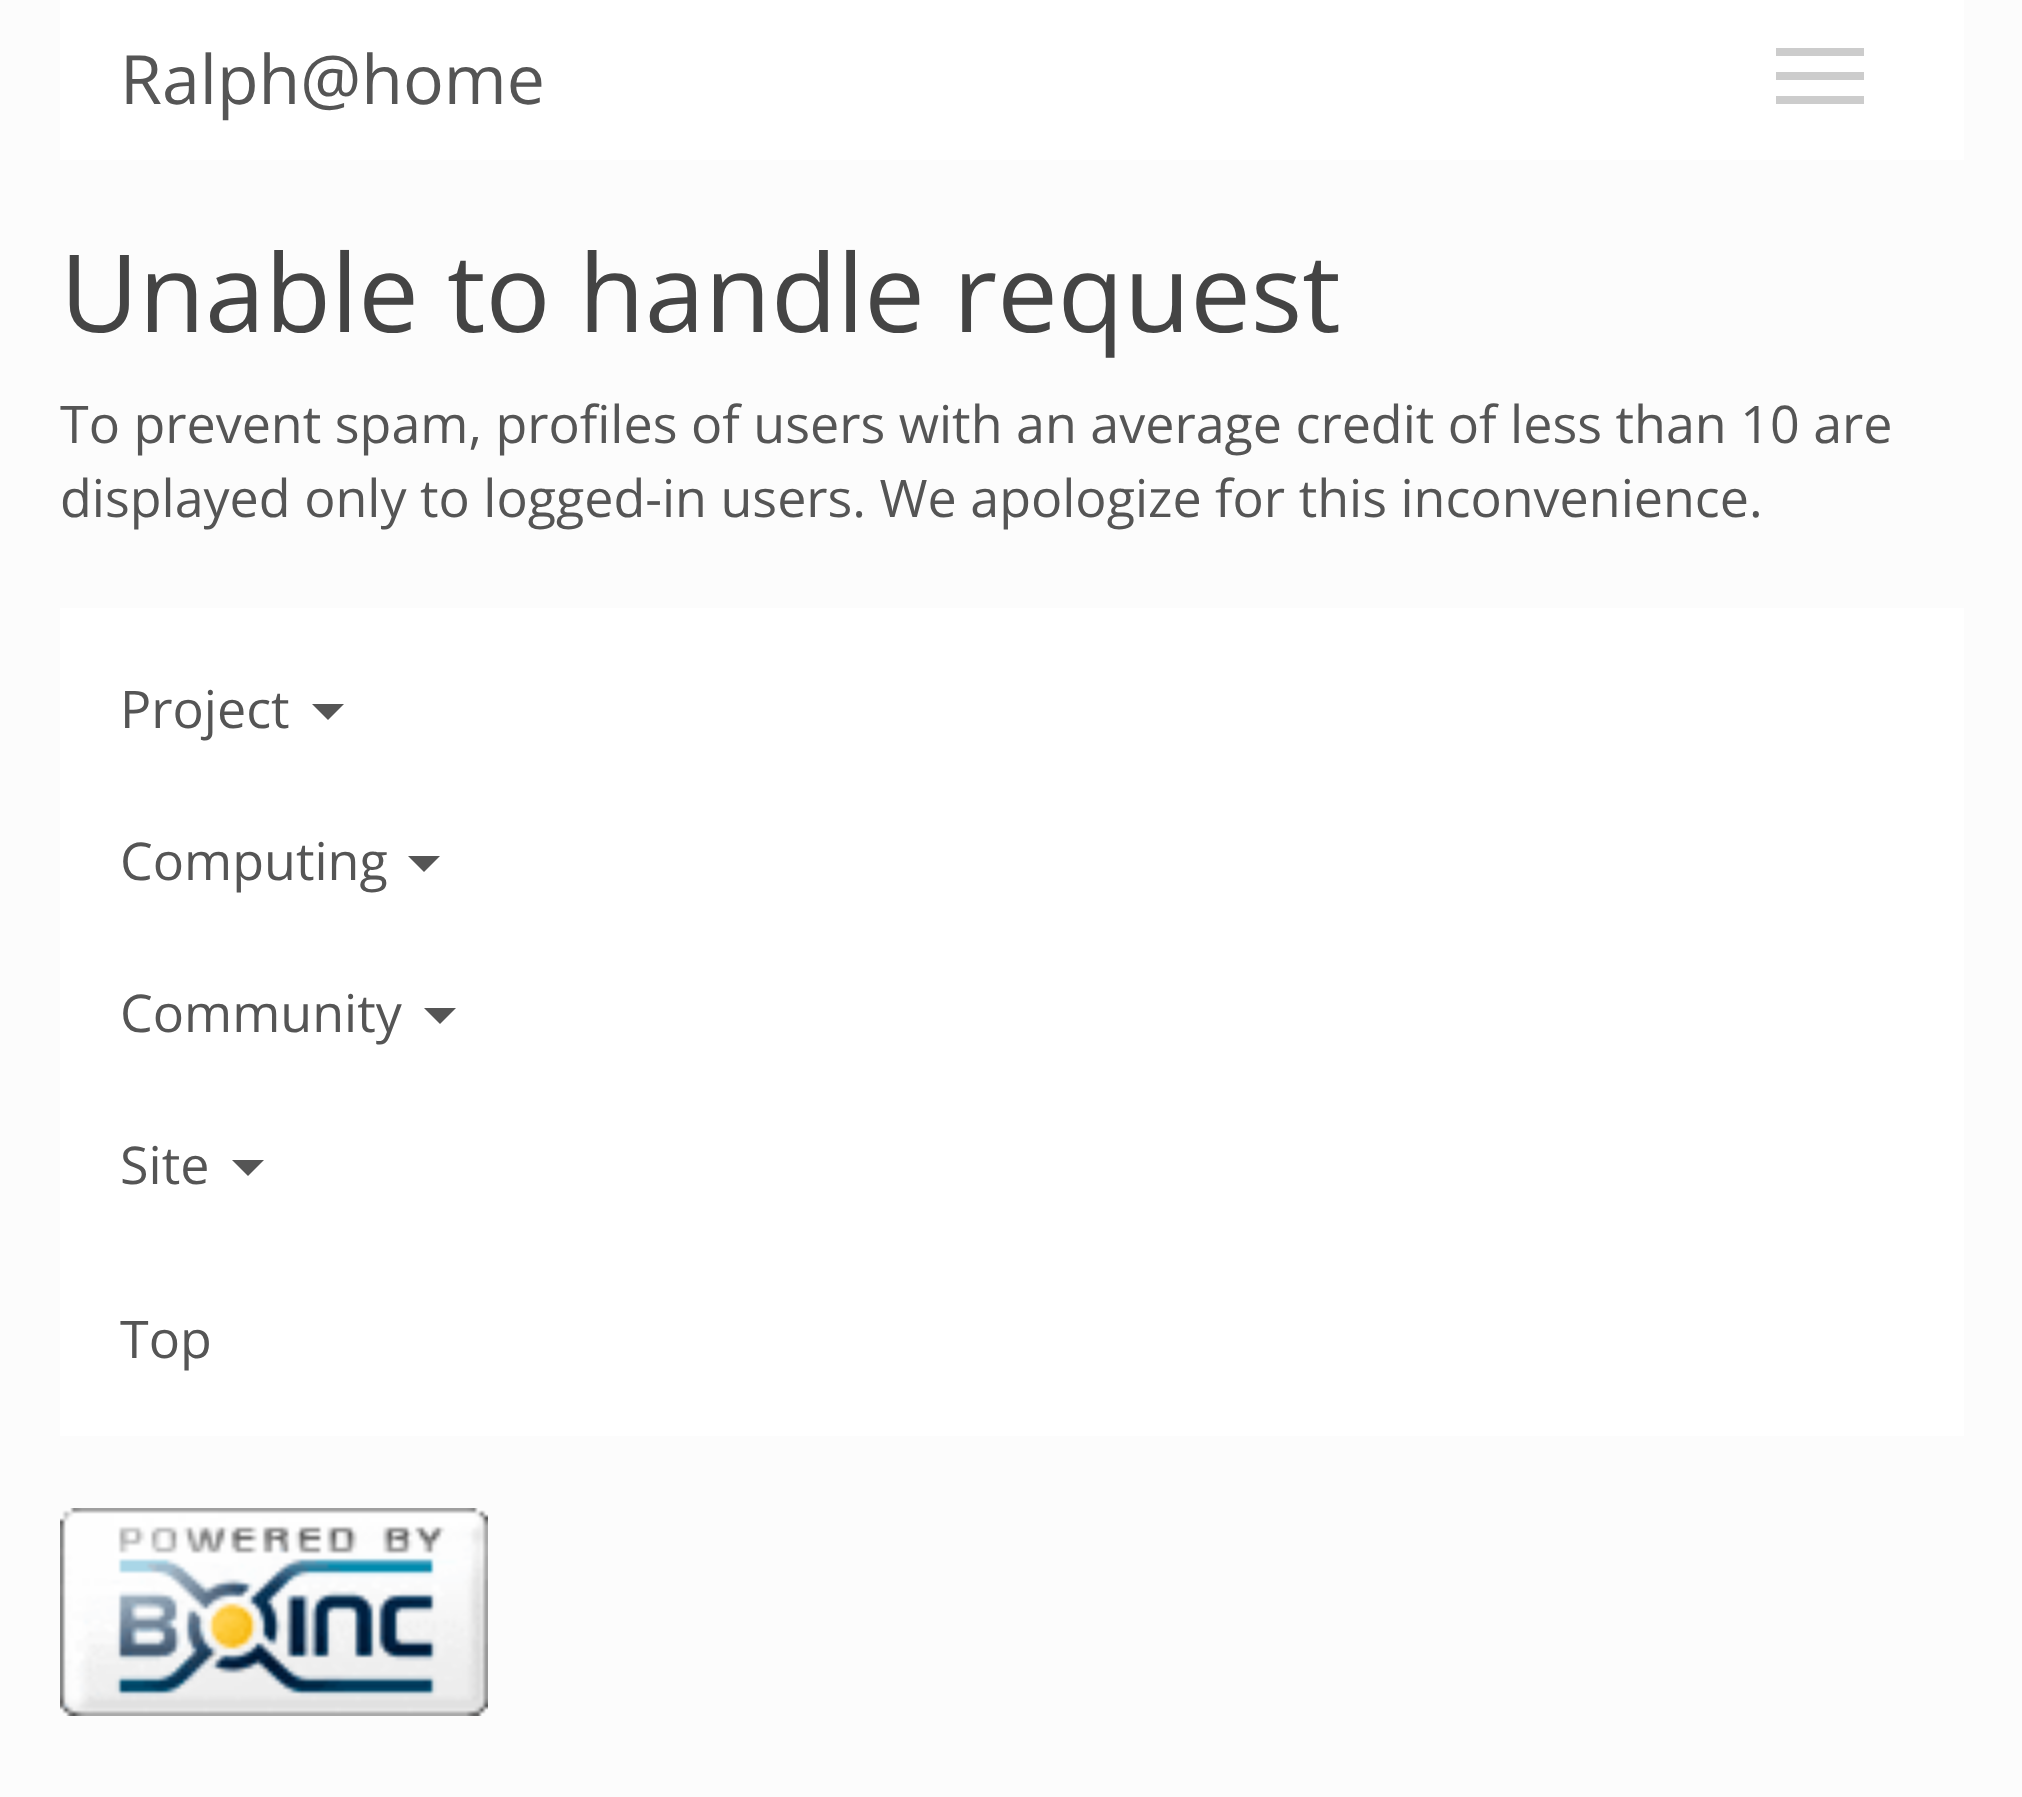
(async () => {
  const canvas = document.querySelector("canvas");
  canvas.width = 2022;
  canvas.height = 1797;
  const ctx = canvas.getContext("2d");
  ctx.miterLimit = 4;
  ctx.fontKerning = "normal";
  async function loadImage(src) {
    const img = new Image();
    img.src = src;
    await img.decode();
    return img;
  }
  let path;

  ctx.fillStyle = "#fcfcfc";
  ctx.fillRect(0, 0, 2022, 1797);
  for (const [x, y, w, h, color] of [
    [60, 0, 1904, 160, "#ffffff"],
    [1776, 48, 88, 8, "#cccccc"],
    [1776, 72, 88, 8, "#cccccc"],
    [1776, 96, 88, 8, "#cccccc"],
    [60, 608, 1904, 828, "#ffffff"],
  ]) {
    ctx.fillStyle = color;
    ctx.fillRect(x, y, w, h);
  }
  ctx.fillStyle = "#555555";
  path = new Path2D("M312 704H344L328 720Z");
  ctx.fill(path);
  path = new Path2D("M408 856H440L424 872Z");
  ctx.fill(path);
  path = new Path2D("M424 1008H456L440 1024Z");
  ctx.fill(path);
  path = new Path2D("M232 1160H264L248 1176Z");
  ctx.fill(path);
  ctx.drawImage(await loadImage("img/1.png"), 60, 1508, 428, 208);
  ctx.font = "68px Open Sans";
  ctx.fillText("Ralph@home", 120, 104);
  ctx.font = "108px Open Sans";
  ctx.fillStyle = "#444444";
  ctx.fillText("Unable to handle request", 60, 332);
  ctx.font = "52px Open Sans";
  ctx.fillStyle = "#555555";
  for (const [text, x, y] of [
    ["To prevent spam, profiles of users with an average credit of less than 10 are", 60, 443],
    ["displayed only to logged-in users. We apologize for this inconvenience.", 60, 517],
    ["Project", 120, 728],
    ["Computing", 120, 880],
    ["Community", 120, 1032],
    ["Site", 120, 1184],
    ["Top", 120, 1358],
  ]) {
    ctx.fillText(text, x, y);
  }
})();
